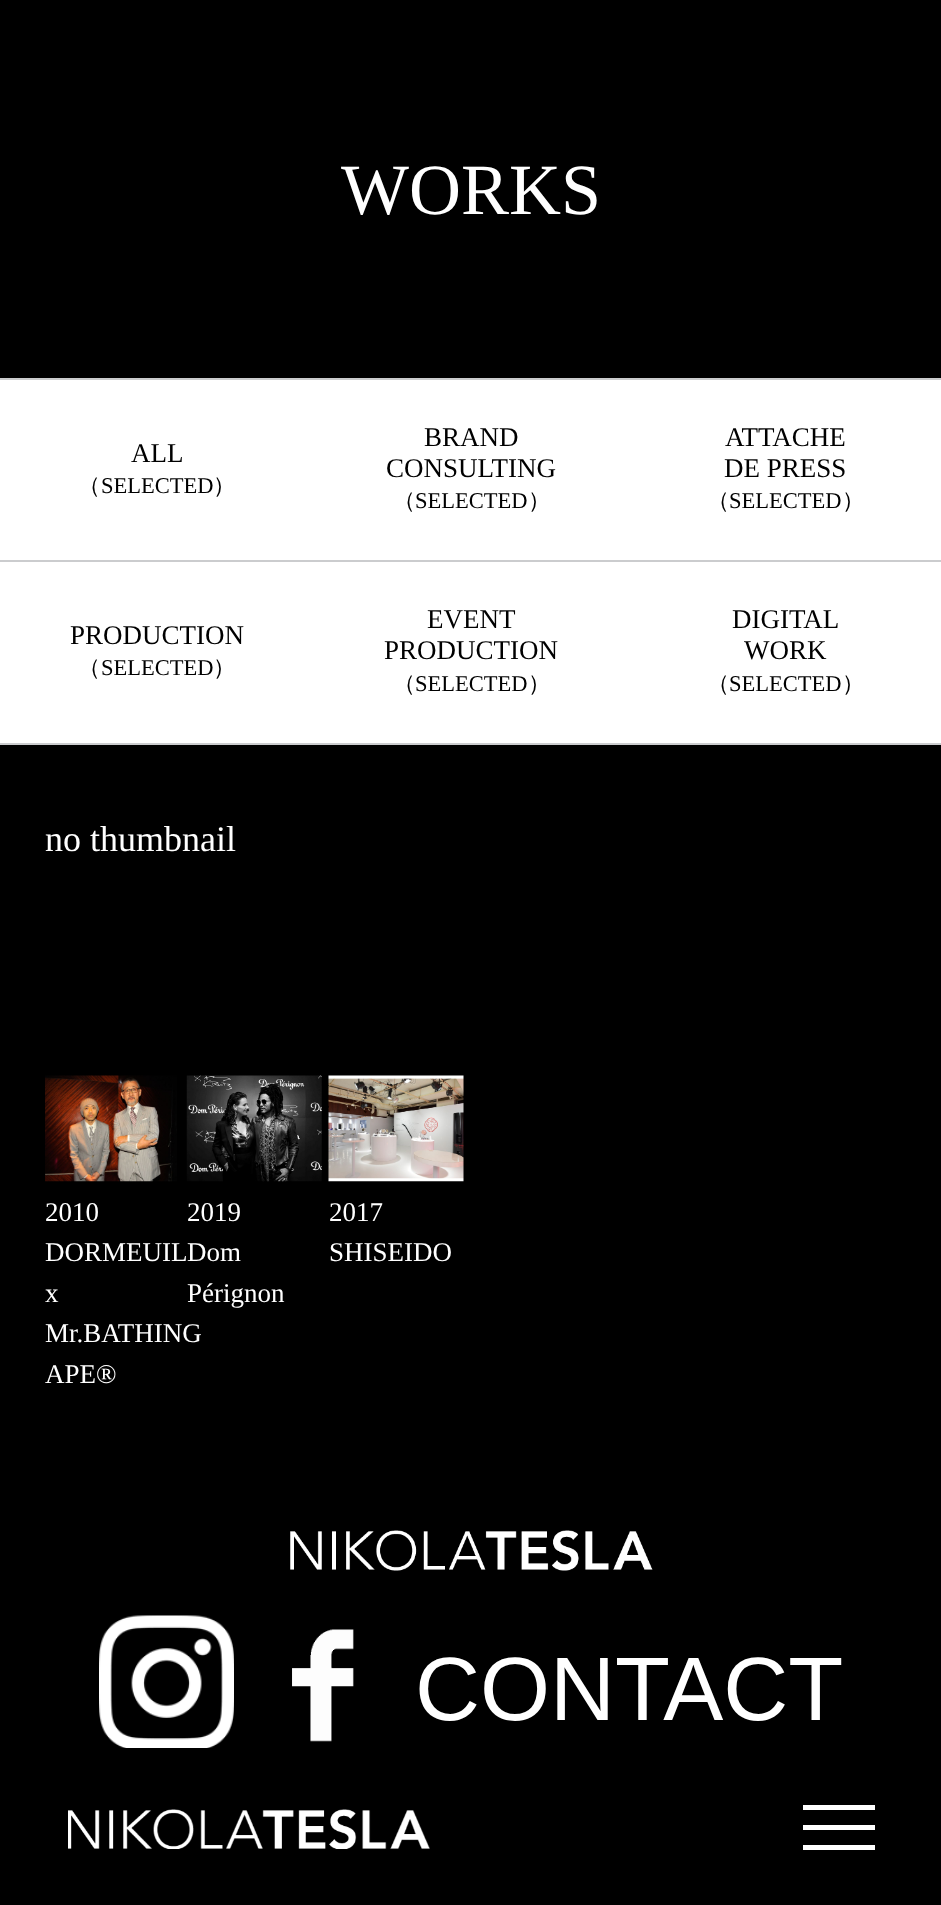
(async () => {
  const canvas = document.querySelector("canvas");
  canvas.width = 941;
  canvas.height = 1905;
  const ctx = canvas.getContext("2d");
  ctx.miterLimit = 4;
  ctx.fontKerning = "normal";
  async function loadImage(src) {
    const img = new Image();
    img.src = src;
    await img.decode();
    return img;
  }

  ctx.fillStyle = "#000000";
  ctx.fillRect(0, 0, 941, 1905);
  for (const [x, y, w, h, color] of [
    [0, 378, 941, 2, "#cbccce"],
    [0, 380, 941, 363, "#ffffff"],
    [0, 560, 941, 2, "#cbccce"],
    [0, 743, 941, 2, "#cbccce"],
  ]) {
    ctx.fillStyle = color;
    ctx.fillRect(x, y, w, h);
  }
  ctx.drawImage(await loadImage("img/1.png"), 45, 1075, 132, 107);
  ctx.drawImage(await loadImage("img/2.png"), 186, 1075, 136, 107);
  ctx.drawImage(await loadImage("img/3.png"), 328, 1075, 136, 107);
  ctx.drawImage(await loadImage("img/4.png"), 290, 1530, 363, 41);
  ctx.drawImage(await loadImage("img/5.png"), 99, 1615, 135, 133);
  ctx.drawImage(await loadImage("img/6.png"), 292, 1629, 62, 113);
  ctx.drawImage(await loadImage("img/7.png"), 68, 1809, 362, 40);
  for (const [x, y, w, h, color] of [
    [803, 1805, 72, 5, "#ffffff"],
    [803, 1825, 72, 5, "#ffffff"],
    [803, 1845, 72, 5, "#ffffff"],
  ]) {
    ctx.fillStyle = color;
    ctx.fillRect(x, y, w, h);
  }
  ctx.font = "72px Liberation Serif";
  ctx.fillText("WORKS", 341, 214);
  ctx.font = "27px Liberation Serif";
  ctx.fillStyle = "#000000";
  ctx.fillText("ALL", 131, 462);
  ctx.font = "500 22.5px WenQuanYi Zen Hei";
  ctx.fillText("（", 78, 493);
  ctx.font = "22.5px Liberation Serif";
  ctx.fillText("SELECTED", 101, 493);
  ctx.font = "500 22.5px WenQuanYi Zen Hei";
  ctx.fillText("）", 213, 493);
  ctx.font = "27px Liberation Serif";
  ctx.fillText("BRAND", 424, 446);
  ctx.fillText("CONSULTING", 386, 477);
  ctx.font = "500 22.5px WenQuanYi Zen Hei";
  ctx.fillText("（", 393, 508);
  ctx.font = "22.5px Liberation Serif";
  ctx.fillText("SELECTED", 415, 508);
  ctx.font = "500 22.5px WenQuanYi Zen Hei";
  ctx.fillText("）", 528, 508);
  ctx.font = "27px Liberation Serif";
  ctx.fillText("ATTACHE", 725, 446);
  ctx.fillText("DE PRESS", 724, 477);
  ctx.font = "500 22.5px WenQuanYi Zen Hei";
  ctx.fillText("（", 707, 508);
  ctx.font = "22.5px Liberation Serif";
  ctx.fillText("SELECTED", 729, 508);
  ctx.font = "500 22.5px WenQuanYi Zen Hei";
  ctx.fillText("）", 842, 508);
  ctx.font = "27px Liberation Serif";
  ctx.fillText("PRODUCTION", 70, 644);
  ctx.font = "500 22.5px WenQuanYi Zen Hei";
  ctx.fillText("（", 78, 675);
  ctx.font = "22.5px Liberation Serif";
  ctx.fillText("SELECTED", 101, 675);
  ctx.font = "500 22.5px WenQuanYi Zen Hei";
  ctx.fillText("）", 213, 675);
  ctx.font = "27px Liberation Serif";
  ctx.fillText("EVENT", 427, 628);
  ctx.fillText("PRODUCTION", 384, 659);
  ctx.font = "500 22.5px WenQuanYi Zen Hei";
  ctx.fillText("（", 393, 691);
  ctx.font = "22.5px Liberation Serif";
  ctx.fillText("SELECTED", 415, 691);
  ctx.font = "500 22.5px WenQuanYi Zen Hei";
  ctx.fillText("）", 528, 691);
  ctx.font = "27px Liberation Serif";
  ctx.fillText("DIGITAL", 732, 628);
  ctx.fillText("WORK", 744, 659);
  ctx.font = "500 22.5px WenQuanYi Zen Hei";
  ctx.fillText("（", 707, 691);
  ctx.font = "22.5px Liberation Serif";
  ctx.fillText("SELECTED", 729, 691);
  ctx.font = "500 22.5px WenQuanYi Zen Hei";
  ctx.fillText("）", 842, 691);
  ctx.font = "36px Liberation Serif";
  ctx.fillStyle = "#ffffff";
  ctx.fillText("no thumbnail", 45, 851);
  ctx.font = "27px Liberation Serif";
  for (const [text, x, y] of [
    ["2010", 45, 1221],
    ["DORMEUIL", 45, 1261],
    ["x", 45, 1302],
    ["Mr.BATHING", 45, 1342],
    ["APE®", 45, 1383],
    ["2019", 187, 1221],
    ["Dom", 187, 1261],
    ["Pérignon", 187, 1302],
    ["2017", 329, 1221],
    ["SHISEIDO", 329, 1261],
  ]) {
    ctx.fillText(text, x, y);
  }
  ctx.font = "90px Liberation Sans";
  ctx.fillText("CONTACT", 415, 1720);
})();
